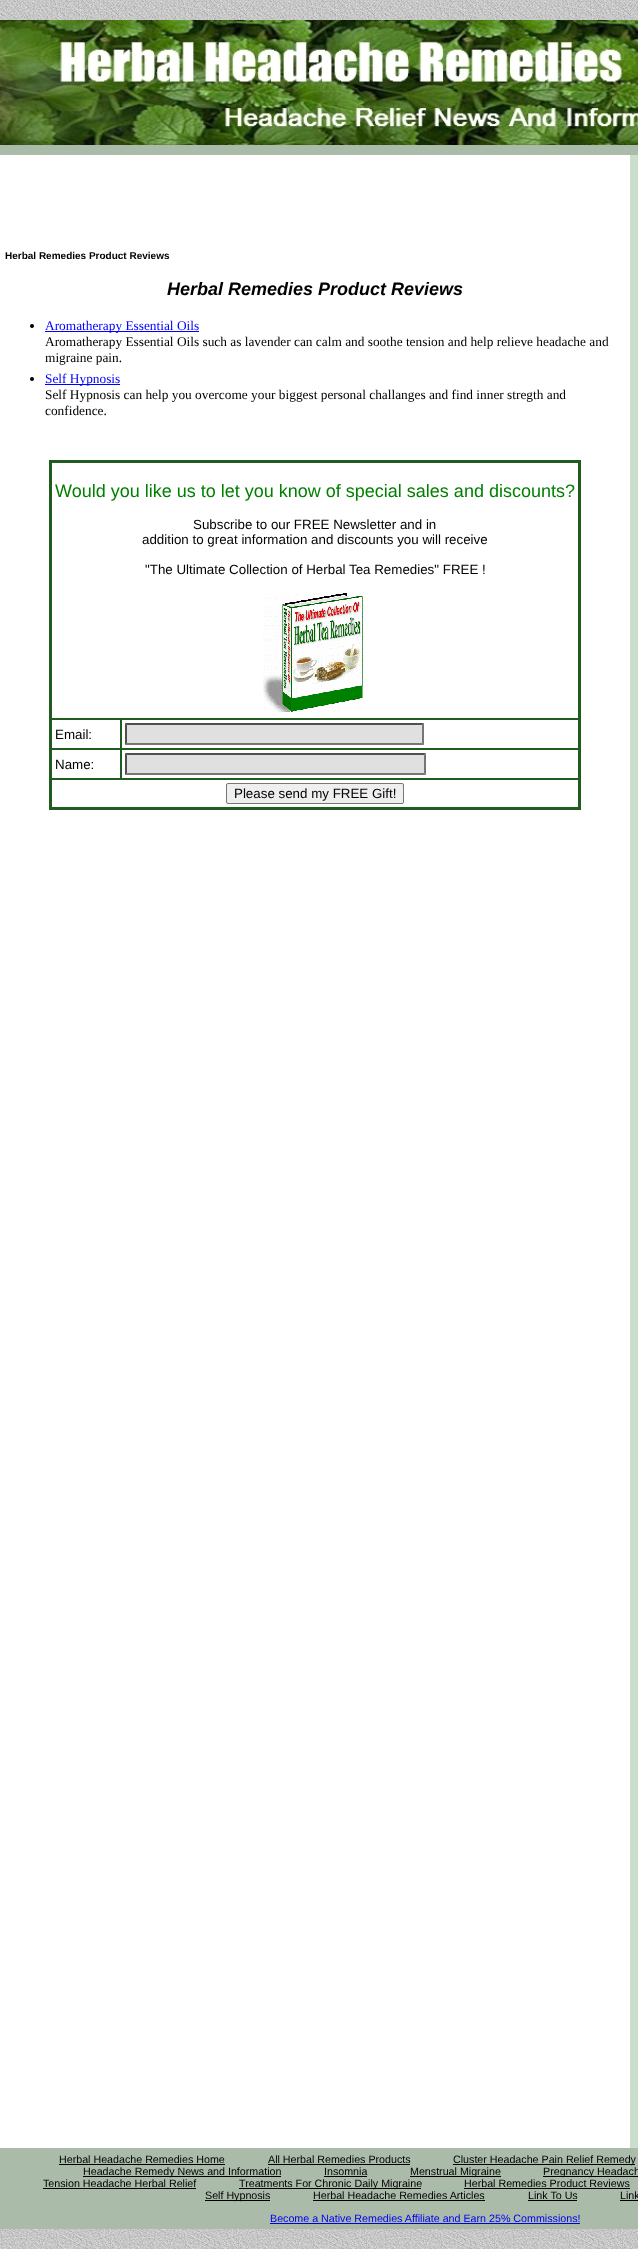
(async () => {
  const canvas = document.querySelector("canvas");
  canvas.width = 638;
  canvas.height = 2249;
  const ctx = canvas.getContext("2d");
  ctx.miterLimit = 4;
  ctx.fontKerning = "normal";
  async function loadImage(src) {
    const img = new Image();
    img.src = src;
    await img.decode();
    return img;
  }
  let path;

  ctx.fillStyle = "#ffffff";
  ctx.fillRect(0, 0, 638, 2249);
  ctx.drawImage(await loadImage("img/1.png"), 0, 0, 638, 2249);
  ctx.drawImage(await loadImage("img/2.png"), 0, 20, 638, 125);
  ctx.fillStyle = "#aabbaa";
  ctx.fillRect(0, 145, 638, 10);
  ctx.fillStyle = "#ffffff";
  ctx.fillRect(0, 155, 630, 1993);
  ctx.fillStyle = "#000000";
  ctx.beginPath();
  ctx.arc(32, 326, 2, 0, Math.PI * 2);
  ctx.fill();
  ctx.fillStyle = "#0000ff";
  ctx.fillRect(45, 331, 154, 1);
  ctx.fillStyle = "#000000";
  ctx.beginPath();
  ctx.arc(32, 379, 2, 0, Math.PI * 2);
  ctx.fill();
  ctx.fillStyle = "#0000ff";
  ctx.fillRect(45, 384, 75, 1);
  ctx.strokeStyle = "#205c20";
  ctx.lineWidth = 2;
  ctx.strokeRect(50, 461, 530, 348);
  ctx.lineWidth = 1;
  ctx.strokeRect(51.5, 462.5, 527, 256);
  ctx.drawImage(await loadImage("img/3.png"), 263, 593, 100, 119);
  ctx.strokeRect(51.5, 719.5, 69, 29);
  ctx.strokeRect(121.5, 719.5, 457, 29);
  ctx.fillStyle = "#e0e0e0";
  ctx.fillRect(125, 723, 299, 22);
  ctx.fillStyle = "#4f4f4f";
  path = new Path2D("M125 723H424L422 725H127Z");
  ctx.fill(path);
  ctx.fillStyle = "#767676";
  path = new Path2D("M424 723V745L422 743V725Z");
  ctx.fill(path);
  path = new Path2D("M424 745H125L127 743H422Z");
  ctx.fill(path);
  ctx.fillStyle = "#4f4f4f";
  path = new Path2D("M125 745V723L127 725V743Z");
  ctx.fill(path);
  ctx.strokeRect(51.5, 749.5, 69, 29);
  ctx.strokeRect(121.5, 749.5, 457, 29);
  ctx.fillStyle = "#e0e0e0";
  ctx.fillRect(125, 753, 301, 22);
  ctx.fillStyle = "#4f4f4f";
  path = new Path2D("M125 753H426L424 755H127Z");
  ctx.fill(path);
  ctx.fillStyle = "#767676";
  path = new Path2D("M426 753V775L424 773V755Z");
  ctx.fill(path);
  path = new Path2D("M426 775H125L127 773H424Z");
  ctx.fill(path);
  ctx.fillStyle = "#4f4f4f";
  path = new Path2D("M125 775V753L127 755V773Z");
  ctx.fill(path);
  ctx.strokeRect(51.5, 779.5, 527, 28);
  ctx.fillStyle = "#efefef";
  ctx.beginPath();
  ctx.roundRect(226.5, 783.5, 177, 20, 1.5);
  ctx.fill();
  ctx.strokeStyle = "#767676";
  ctx.stroke();
  for (const [x, y, w, h, color] of [
    [630, 155, 8, 1993, "#ccddcc"],
    [0, 2148, 638, 81, "#aabbaa"],
    [59, 2164, 166, 1, "#000000"],
    [268, 2164, 142, 1, "#000000"],
    [453, 2164, 182, 1, "#000000"],
    [83, 2176, 198, 1, "#000000"],
    [324, 2176, 43, 1, "#000000"],
    [410, 2176, 91, 1, "#000000"],
    [543, 2176, 95, 1, "#000000"],
    [43, 2188, 153, 1, "#000000"],
    [239, 2188, 182, 1, "#000000"],
    [464, 2188, 166, 1, "#000000"],
    [205, 2200, 65, 1, "#000000"],
    [313, 2200, 172, 1, "#000000"],
    [528, 2200, 49, 1, "#000000"],
    [620, 2200, 18, 1, "#000000"],
    [270, 2223, 310, 1, "#0000ee"],
  ]) {
    ctx.fillStyle = color;
    ctx.fillRect(x, y, w, h);
  }
  ctx.font = "bold 10px Liberation Sans";
  ctx.fillStyle = "#000000";
  ctx.fillText("Herbal Remedies Product Reviews", 5, 259);
  ctx.font = "italic bold 18px Liberation Sans";
  ctx.fillText("Herbal Remedies Product Reviews", 167, 295);
  ctx.font = "13.35px Liberation Serif";
  ctx.fillStyle = "#0000ff";
  ctx.fillText("Aromatherapy Essential Oils", 45, 330);
  ctx.fillStyle = "#000000";
  ctx.fillText("Aromatherapy Essential Oils such as lavender can calm and soothe tension and help relieve headache and", 45, 346);
  ctx.fillText("migraine pain.", 45, 362);
  ctx.fillStyle = "#0000ff";
  ctx.fillText("Self Hypnosis", 45, 383);
  ctx.fillStyle = "#000000";
  ctx.fillText("Self Hypnosis can help you overcome your biggest personal challanges and find inner stregth and", 45, 399);
  ctx.fillText("confidence.", 45, 415);
  ctx.font = "18px Liberation Sans";
  ctx.fillStyle = "#008000";
  ctx.fillText("Would you like us to let you know of special sales and discounts?", 55, 497);
  ctx.font = "13.35px Liberation Sans";
  ctx.fillStyle = "#000000";
  for (const [text, x, y] of [
    ["Subscribe to our FREE Newsletter and in", 193, 529],
    ["addition to great information and discounts you will receive", 142, 544],
    ["\"The Ultimate Collection of Herbal Tea Remedies\" FREE !", 145, 574],
    ["Email:", 55, 739],
    ["Name:", 55, 769],
    ["Please send my FREE Gift!", 234, 798],
  ]) {
    ctx.fillText(text, x, y);
  }
  ctx.font = "10.7px Liberation Sans";
  for (const [text, x, y] of [
    ["Herbal Headache Remedies Home", 59, 2163],
    ["All Herbal Remedies Products", 268, 2163],
    ["Cluster Headache Pain Relief Remedy", 453, 2163],
    ["Headache Remedy News and Information", 83, 2175],
    ["Insomnia", 324, 2175],
    ["Menstrual Migraine", 410, 2175],
    ["Pregnancy Headach", 543, 2175],
    ["Tension Headache Herbal Relief", 43, 2187],
    ["Treatments For Chronic Daily Migraine", 239, 2187],
    ["Herbal Remedies Product Reviews", 464, 2187],
    ["Self Hypnosis", 205, 2199],
    ["Herbal Headache Remedies Articles", 313, 2199],
    ["Link To Us", 528, 2199],
    ["Link", 620, 2199],
  ]) {
    ctx.fillText(text, x, y);
  }
  ctx.fillStyle = "#0000ee";
  ctx.fillText("Become a Native Remedies Affiliate and Earn 25% Commissions!", 270, 2222);
})();
